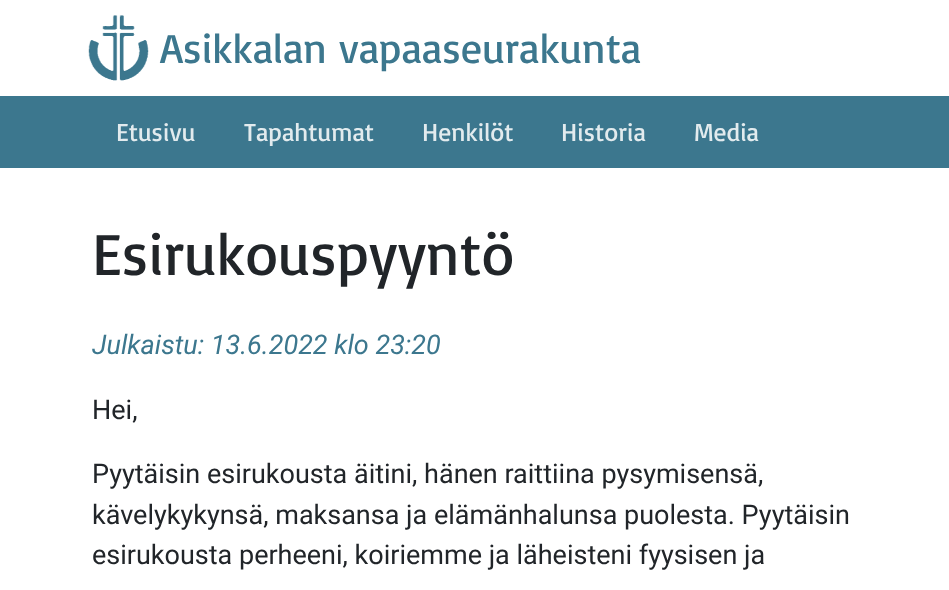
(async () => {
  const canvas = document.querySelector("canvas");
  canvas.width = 949;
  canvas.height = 590;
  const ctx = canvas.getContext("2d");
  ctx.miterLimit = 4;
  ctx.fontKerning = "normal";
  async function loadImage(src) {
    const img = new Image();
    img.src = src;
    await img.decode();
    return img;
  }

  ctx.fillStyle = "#ffffff";
  ctx.fillRect(0, 0, 949, 590);
  ctx.drawImage(await loadImage("img/1.png"), 88, 15, 61, 66);
  ctx.fillStyle = "#3c778e";
  ctx.fillRect(0, 96, 949, 72);
  ctx.font = "42px Basic";
  ctx.fillText("Asikkalan vapaaseurakunta", 160, 63);
  ctx.font = "25.5px Basic";
  ctx.fillStyle = "#e2ebee";
  for (const [text, x, y] of [
    ["Etusivu", 116, 141],
    ["Tapahtumat", 244, 141],
    ["Henkilöt", 422, 141],
    ["Historia", 561, 141],
    ["Media", 694, 141],
  ]) {
    ctx.fillText(text, x, y);
  }
  ctx.font = "60px Basic";
  ctx.fillStyle = "#212529";
  ctx.fillText("Esirukouspyyntö", 92, 275);
  ctx.font = "italic 27px Roboto";
  ctx.fillStyle = "#3c778e";
  ctx.fillText("Julkaistu: 13.6.2022 klo 23:20", 92, 354);
  ctx.font = "27px Roboto";
  ctx.fillStyle = "#212529";
  for (const [text, x, y] of [
    ["Hei,", 92, 419],
    ["Pyytäisin esirukousta äitini, hänen raittiina pysymisensä,", 92, 483],
    ["kävelykykynsä, maksansa ja elämänhalunsa puolesta. Pyytäisin", 92, 524],
    ["esirukousta perheeni, koiriemme ja läheisteni fyysisen ja", 92, 564],
  ]) {
    ctx.fillText(text, x, y);
  }
})();
